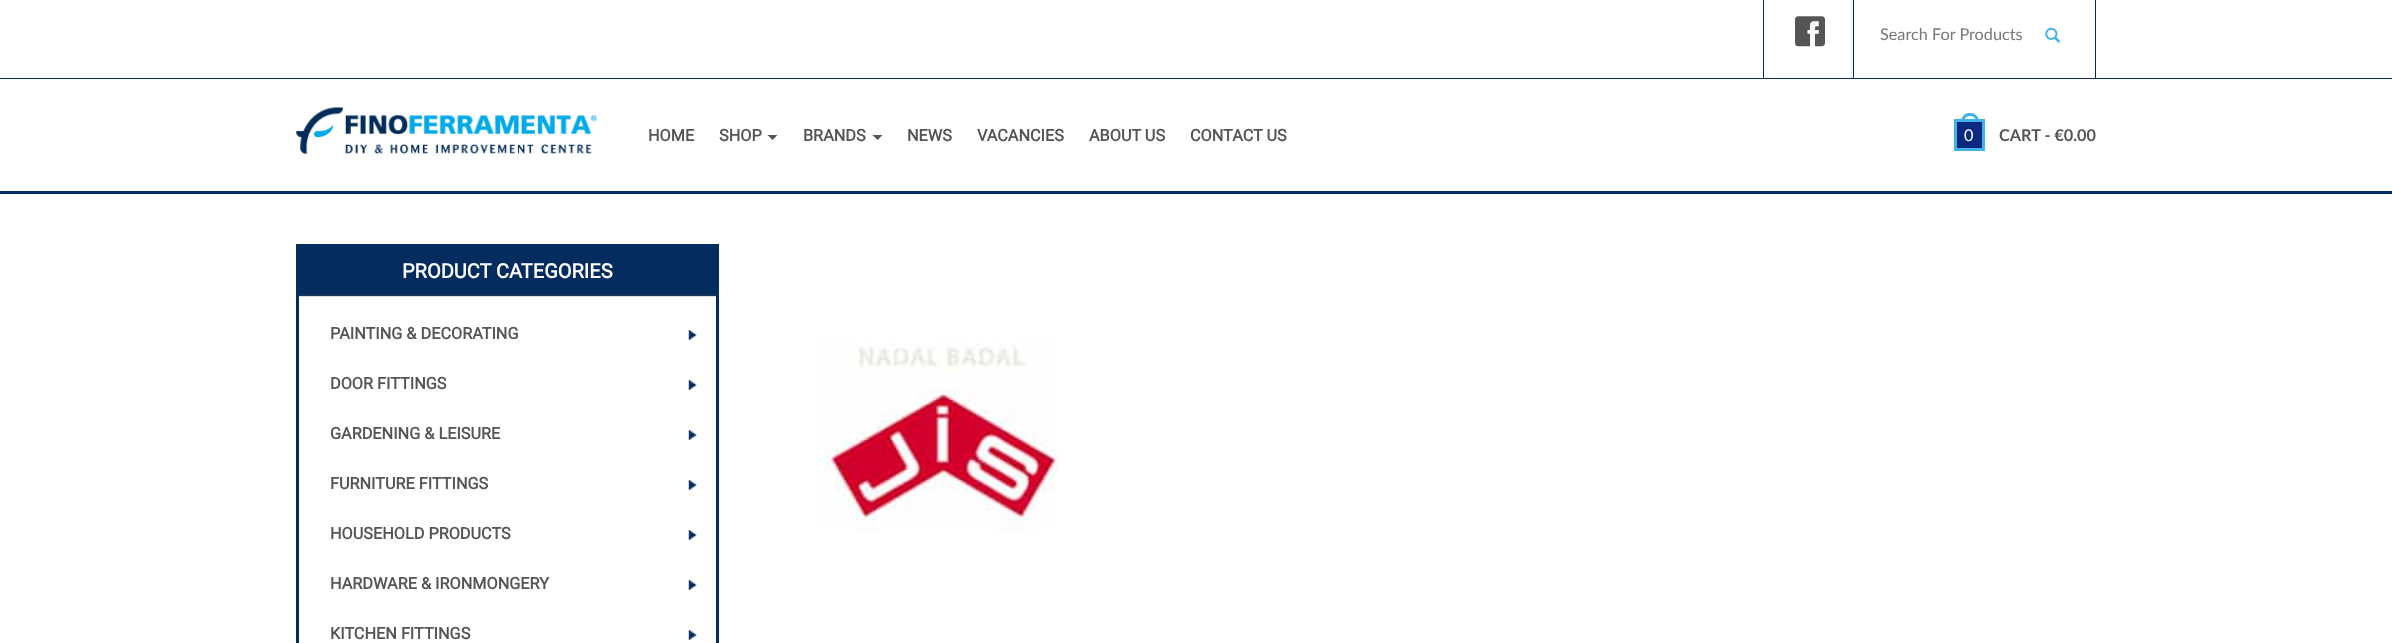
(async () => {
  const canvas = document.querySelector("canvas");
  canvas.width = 2392;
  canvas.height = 643;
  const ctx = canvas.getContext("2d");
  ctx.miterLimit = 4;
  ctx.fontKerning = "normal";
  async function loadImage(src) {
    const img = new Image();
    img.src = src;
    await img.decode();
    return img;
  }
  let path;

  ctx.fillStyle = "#ffffff";
  ctx.fillRect(0, 0, 2392, 643);
  for (const [x, y, w, h, color] of [
    [0, 78, 2392, 1, "#042c5e"],
    [1851, 0, 1, 78, "#ebebeb"],
    [1763, 0, 1, 78, "#042c5e"],
  ]) {
    ctx.fillStyle = color;
    ctx.fillRect(x, y, w, h);
  }
  ctx.drawImage(await loadImage("img/1.png"), 1795, 16, 30, 31);
  ctx.fillStyle = "#042c58";
  ctx.fillRect(2095, 0, 1, 78);
  ctx.fillRect(1853, 0, 1, 78);
  ctx.drawImage(await loadImage("img/2.png"), 2045, 27, 16, 16);
  ctx.fillStyle = "#042c5e";
  ctx.fillRect(0, 191, 2392, 3);
  ctx.fillStyle = "#555555";
  path = new Path2D("M767.5 135H777.5L772.5 140Z");
  ctx.fill(path);
  path = new Path2D("M872.5 135H882.5L877.5 140Z");
  ctx.fill(path);
  ctx.drawImage(await loadImage("img/3.png"), 296, 107, 301, 47);
  ctx.beginPath();
  ctx.roundRect(1962.5, 114.5, 15, 14, 7);
  ctx.strokeStyle = "#41b2ea";
  ctx.lineWidth = 3;
  ctx.stroke();
  ctx.fillStyle = "#0a297f";
  ctx.beginPath();
  ctx.rect(1955.5, 120.5, 28, 29);
  ctx.fill();
  ctx.stroke();
  ctx.fillStyle = "#dddddd";
  ctx.fillRect(299, 296, 417, 1);
  ctx.strokeStyle = "#042c5e";
  ctx.strokeRect(297.5, 245.5, 420, 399);
  ctx.fillStyle = "#042c5e";
  ctx.fillRect(299, 247, 417, 47);
  ctx.fillStyle = "#14345c";
  ctx.fillRect(299, 294, 417, 2);
  ctx.drawImage(await loadImage("img/4.png"), 688, 330, 9, 10);
  ctx.drawImage(await loadImage("img/4.png"), 688, 380, 9, 10);
  ctx.drawImage(await loadImage("img/4.png"), 688, 430, 9, 10);
  ctx.drawImage(await loadImage("img/4.png"), 688, 480, 9, 10);
  ctx.drawImage(await loadImage("img/4.png"), 688, 530, 9, 10);
  ctx.drawImage(await loadImage("img/4.png"), 688, 580, 9, 10);
  ctx.drawImage(await loadImage("img/4.png"), 688, 630, 9, 10);
  ctx.drawImage(await loadImage("img/5.png"), 816, 340, 242, 191);
  ctx.font = "16.25px Lato";
  ctx.fillStyle = "#777777";
  ctx.fillText("Search For Products", 1880, 40);
  ctx.font = "bold 16.25px Roboto";
  ctx.fillStyle = "#555555";
  for (const [text, x, y] of [
    ["HOME", 648, 141],
    ["SHOP", 719, 141],
    ["BRANDS", 803, 141],
    ["NEWS", 907, 141],
    ["VACANCIES", 977, 141],
    ["ABOUT US", 1089, 141],
    ["CONTACT US", 1190, 141],
  ]) {
    ctx.fillText(text, x, y);
  }
  ctx.font = "16.25px Lato";
  ctx.fillStyle = "#ffffff";
  ctx.fillText("0", 1964, 141);
  ctx.font = "bold 16.25px Lato";
  ctx.fillStyle = "#555555";
  ctx.fillText("CART - €0.00", 1999, 141);
  ctx.font = "bold 20px Roboto";
  ctx.fillStyle = "#ffffff";
  ctx.fillText("PRODUCT CATEGORIES", 402, 278);
  ctx.font = "bold 16.25px Roboto";
  ctx.fillStyle = "#555555";
  for (const [text, x, y] of [
    ["PAINTING & DECORATING", 330, 339],
    ["DOOR FITTINGS", 330, 389],
    ["GARDENING & LEISURE", 330, 439],
    ["FURNITURE FITTINGS", 330, 489],
    ["HOUSEHOLD PRODUCTS", 330, 539],
    ["HARDWARE & IRONMONGERY", 330, 589],
    ["KITCHEN FITTINGS", 330, 639],
  ]) {
    ctx.fillText(text, x, y);
  }
})();
